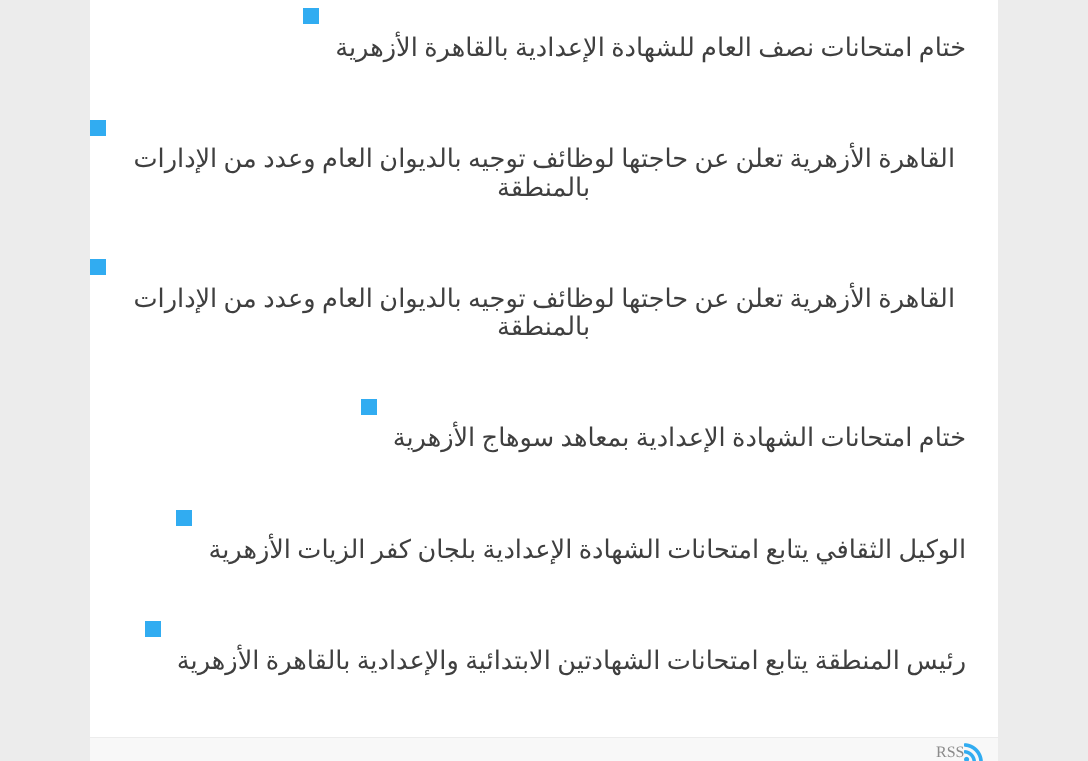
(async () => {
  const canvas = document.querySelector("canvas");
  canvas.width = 1088;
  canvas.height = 761;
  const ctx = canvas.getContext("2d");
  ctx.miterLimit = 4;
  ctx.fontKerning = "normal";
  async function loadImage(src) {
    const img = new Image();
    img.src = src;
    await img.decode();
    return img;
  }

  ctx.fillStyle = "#ececec";
  ctx.fillRect(0, 0, 1088, 761);
  for (const [x, y, w, h, color] of [
    [90, 0, 908, 737, "#ffffff"],
    [303, 8, 16, 16, "#31acf1"],
    [90, 120, 16, 16, "#31acf1"],
    [90, 259, 16, 16, "#31acf1"],
    [361, 399, 16, 16, "#31acf1"],
    [176, 510, 16, 16, "#31acf1"],
    [145, 621, 16, 16, "#31acf1"],
    [90, 738, 908, 23, "#f8f8f8"],
  ]) {
    ctx.fillStyle = color;
    ctx.fillRect(x, y, w, h);
  }
  ctx.drawImage(await loadImage("img/1.png"), 964, 743, 19, 18);
  ctx.wordSpacing = "-1.75px";
  ctx.direction = "rtl";
  ctx.font = "25.6px DejaVu Sans";
  ctx.fillStyle = "#3f3f3f";
  ctx.fillText("ختام امتحانات نصف العام للشهادة الإعدادية بالقاهرة الأزهرية", 966, 56);
  ctx.fillText("القاهرة الأزهرية تعلن عن حاجتها لوظائف توجيه بالديوان العام وعدد من الإدارات", 955, 167);
  ctx.wordSpacing = "0px";
  ctx.fillText("بالمنطقة", 590, 196);
  ctx.wordSpacing = "-1.75px";
  ctx.fillText("القاهرة الأزهرية تعلن عن حاجتها لوظائف توجيه بالديوان العام وعدد من الإدارات", 955, 307);
  ctx.wordSpacing = "0px";
  ctx.fillText("بالمنطقة", 590, 335);
  ctx.wordSpacing = "-1.75px";
  for (const [text, x, y] of [
    ["ختام امتحانات الشهادة الإعدادية بمعاهد سوهاج الأزهرية", 966, 446],
    ["الوكيل الثقافي يتابع امتحانات الشهادة الإعدادية بلجان كفر الزيات الأزهرية", 966, 558],
    ["رئيس المنطقة يتابع امتحانات الشهادتين الابتدائية والإعدادية بالقاهرة الأزهرية", 966, 669],
  ]) {
    ctx.fillText(text, x, y);
  }
  ctx.wordSpacing = "0px";
  ctx.direction = "ltr";
  ctx.font = "16px Liberation Serif";
  ctx.fillStyle = "#8c8c8c";
  ctx.fillText("RSS", 936, 757);
})();
